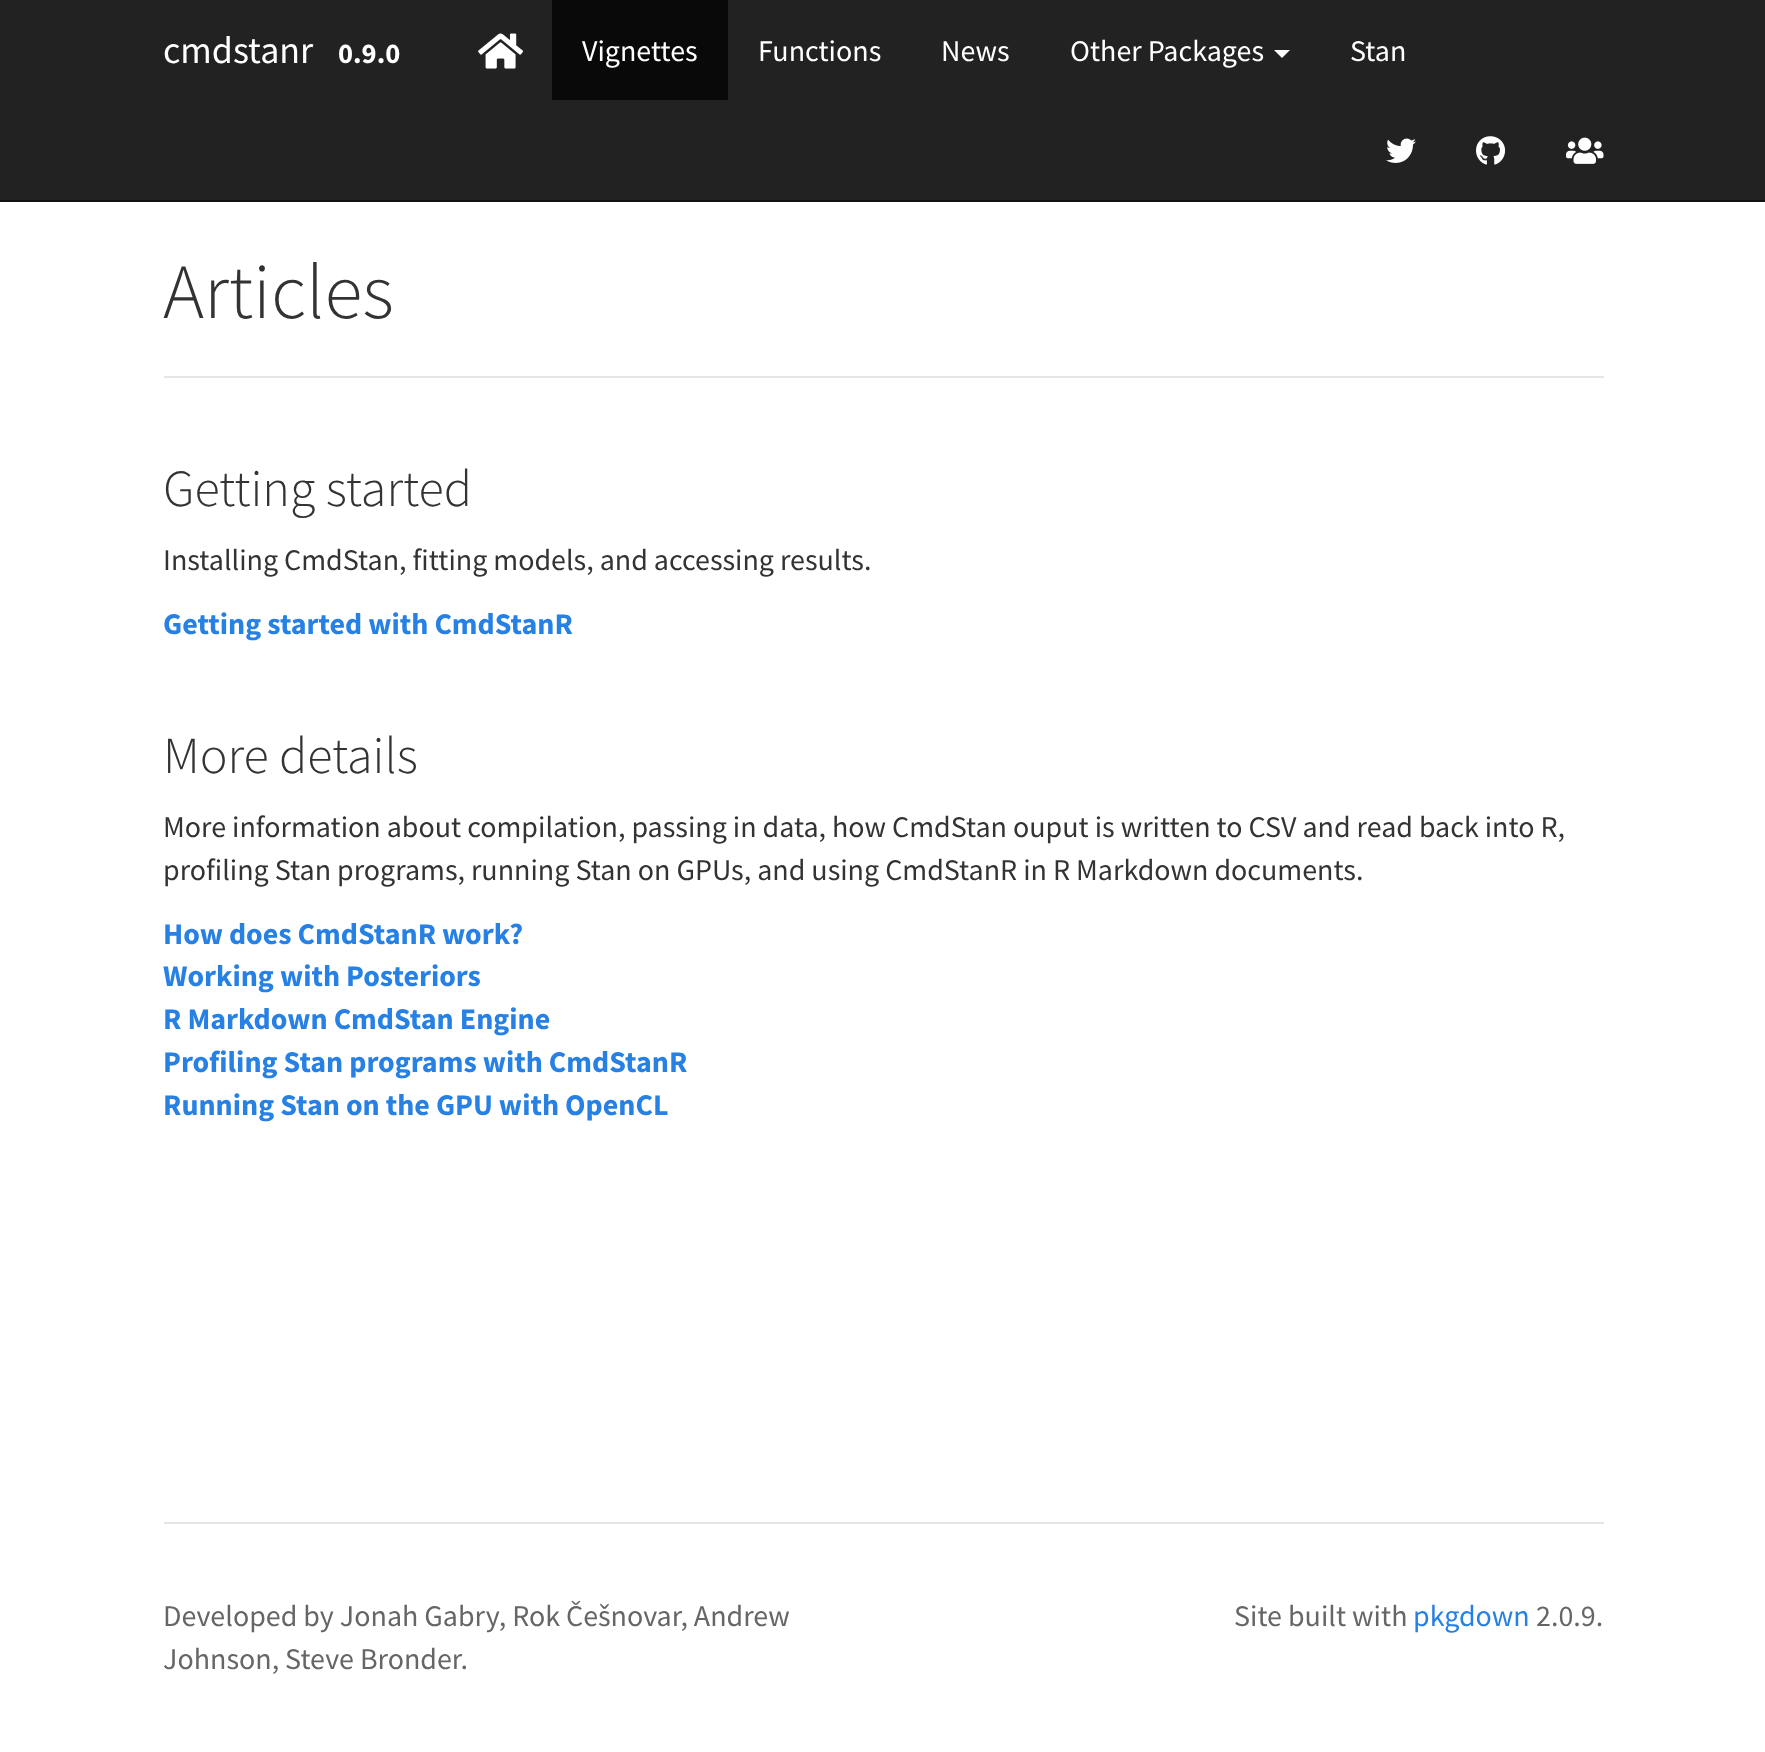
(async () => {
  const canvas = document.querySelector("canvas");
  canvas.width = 1765;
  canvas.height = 1752;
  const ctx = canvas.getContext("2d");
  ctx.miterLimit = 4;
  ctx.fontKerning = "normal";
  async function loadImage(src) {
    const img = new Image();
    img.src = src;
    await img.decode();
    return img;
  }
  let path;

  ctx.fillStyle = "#ffffff";
  ctx.fillRect(0, 0, 1765, 1752);
  ctx.fillStyle = "#222222";
  ctx.fillRect(0, 0, 1765, 200);
  ctx.fillStyle = "#121212";
  ctx.fillRect(0, 200, 1765, 2);
  ctx.drawImage(await loadImage("img/1.png"), 478, 33, 46, 36);
  ctx.fillStyle = "#090909";
  ctx.fillRect(552, 0, 176, 100);
  ctx.fillStyle = "#ffffff";
  path = new Path2D("M1274 50H1290L1282 58Z");
  ctx.fill(path);
  ctx.drawImage(await loadImage("img/2.png"), 1386, 138, 30, 25);
  ctx.drawImage(await loadImage("img/3.png"), 1476, 136, 30, 29);
  ctx.drawImage(await loadImage("img/4.png"), 1566, 137, 38, 27);
  ctx.fillStyle = "#e6e6e6";
  ctx.fillRect(164, 376, 1440, 2);
  ctx.fillStyle = "#e5e5e5";
  ctx.fillRect(164, 1522, 1440, 2);
  ctx.font = "38px Source Sans Pro";
  ctx.fillStyle = "#ffffff";
  ctx.fillText("cmdstanr", 163, 63);
  ctx.font = "bold 28.5px Source Sans Pro";
  ctx.fillText("0.9.0", 338, 63);
  ctx.font = "30px Source Sans Pro";
  for (const [text, x, y] of [
    ["Vignettes", 582, 61],
    ["Functions", 758, 61],
    ["News", 941, 61],
    ["Other Packages", 1070, 61],
    ["Stan", 1350, 61],
  ]) {
    ctx.fillText(text, x, y);
  }
  ctx.font = "300 78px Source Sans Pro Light";
  ctx.fillStyle = "#333333";
  ctx.fillText("Articles", 163, 318);
  ctx.font = "300 52px Source Sans Pro Light";
  ctx.fillText("Getting started", 163, 506);
  ctx.font = "30px Source Sans Pro";
  ctx.fillText("Installing CmdStan, fitting models, and accessing results.", 163, 570);
  ctx.font = "bold 30px Source Sans Pro";
  ctx.fillStyle = "#2780e3";
  ctx.fillText("Getting started with CmdStanR", 163, 634);
  ctx.font = "300 52px Source Sans Pro Light";
  ctx.fillStyle = "#333333";
  ctx.fillText("More details", 163, 773);
  ctx.font = "30px Source Sans Pro";
  ctx.fillText("More information about compilation, passing in data, how CmdStan ouput is written to CSV and read back into R,", 163, 837);
  ctx.fillText("profiling Stan programs, running Stan on GPUs, and using CmdStanR in R Markdown documents.", 163, 880);
  ctx.font = "bold 30px Source Sans Pro";
  ctx.fillStyle = "#2780e3";
  for (const [text, x, y] of [
    ["How does CmdStanR work?", 163, 944],
    ["Working with Posteriors", 163, 986],
    ["R Markdown CmdStan Engine", 163, 1029],
    ["Profiling Stan programs with CmdStanR", 163, 1072],
    ["Running Stan on the GPU with OpenCL", 163, 1115],
  ]) {
    ctx.fillText(text, x, y);
  }
  ctx.font = "30px Source Sans Pro";
  ctx.fillStyle = "#666666";
  for (const [text, x, y] of [
    ["Developed by Jonah Gabry, Rok Češnovar, Andrew", 163, 1626],
    ["Johnson, Steve Bronder.", 163, 1669],
    ["Site built with", 1234, 1626],
  ]) {
    ctx.fillText(text, x, y);
  }
  ctx.fillStyle = "#2780e3";
  ctx.fillText("pkgdown", 1413, 1626);
  ctx.fillStyle = "#666666";
  ctx.fillText("2.0.9.", 1536, 1626);
})();
